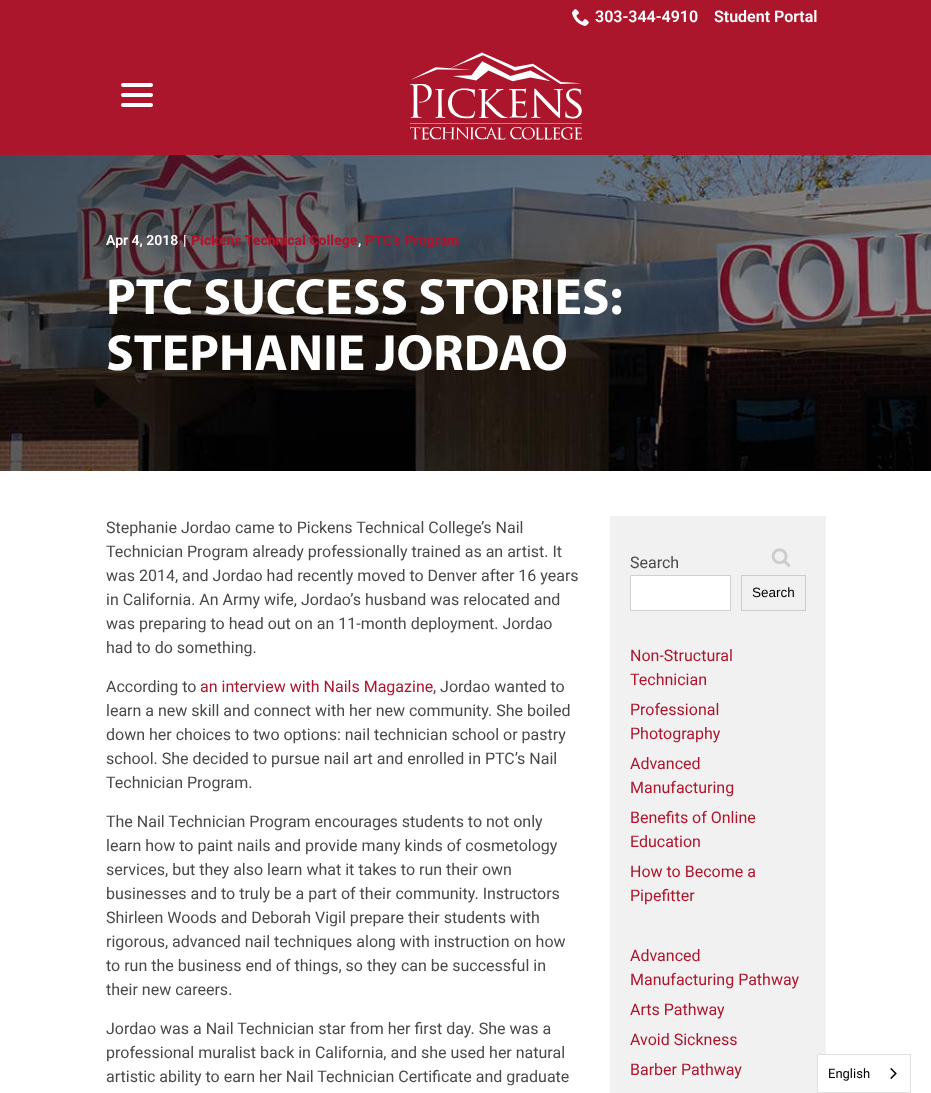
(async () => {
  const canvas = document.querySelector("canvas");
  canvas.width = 931;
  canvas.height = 1093;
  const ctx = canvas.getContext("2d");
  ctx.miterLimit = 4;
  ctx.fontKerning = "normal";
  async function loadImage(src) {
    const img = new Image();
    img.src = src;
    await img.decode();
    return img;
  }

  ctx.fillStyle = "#ffffff";
  ctx.fillRect(0, 0, 931, 1093);
  ctx.fillStyle = "#ab162c";
  ctx.fillRect(0, 0, 931, 155);
  ctx.drawImage(await loadImage("img/1.png"), 572, 9, 17, 17);
  ctx.fillStyle = "#ffffff";
  ctx.beginPath();
  ctx.roundRect(121, 93, 32, 4, 2);
  ctx.fill();
  ctx.beginPath();
  ctx.roundRect(121, 83, 32, 4, 2);
  ctx.fill();
  ctx.beginPath();
  ctx.roundRect(121, 103, 32, 4, 2);
  ctx.fill();
  ctx.drawImage(await loadImage("img/2.png"), 409, 52, 173, 88);
  ctx.drawImage(await loadImage("img/3.png"), 0, 155, 931, 316);
  ctx.fillStyle = "#f1f1f1";
  ctx.fillRect(610, 516, 216, 577);
  ctx.drawImage(await loadImage("img/4.png"), 771, 548, 20, 19);
  ctx.fillStyle = "#ffffff";
  ctx.beginPath();
  ctx.rect(630.5, 575.5, 100, 35);
  ctx.fill();
  ctx.strokeStyle = "#d0d0d0";
  ctx.stroke();
  ctx.strokeStyle = "#cccccc";
  ctx.strokeRect(741.5, 575.5, 64, 35);
  ctx.fillRect(818, 1055, 8, 37);
  ctx.strokeStyle = "#e0e0e0";
  ctx.strokeRect(817.5, 1054.5, 93, 38);
  ctx.drawImage(await loadImage("img/5.png"), 890, 1068, 7, 11);
  ctx.font = "600 16px Roboto";
  ctx.fillText("303-344-4910", 595, 22);
  ctx.fillText("Student Portal", 714, 22);
  ctx.font = "600 14px Roboto";
  ctx.fillText("Apr 4, 2018", 106, 245);
  ctx.fillText("|", 183, 245);
  ctx.font = "900 14px Roboto";
  ctx.fillStyle = "#ac162c";
  ctx.fillText("Pickens Technical College", 191, 245);
  ctx.font = "600 14px Roboto";
  ctx.fillStyle = "#ffffff";
  ctx.fillText(",", 358, 245);
  ctx.font = "900 14px Roboto";
  ctx.fillStyle = "#ac162c";
  ctx.fillText("PTC’s Program", 365, 245);
  ctx.font = "bold 51.25px Myriad";
  ctx.fillStyle = "#ffffff";
  ctx.fillText("PTC SUCCESS STORIES:", 106, 314);
  ctx.fillText("STEPHANIE JORDAO", 106, 370);
  ctx.font = "16px Roboto";
  ctx.fillStyle = "#4b484c";
  for (const [text, x, y] of [
    ["Stephanie Jordao came to Pickens Technical College’s Nail", 106, 533],
    ["Technician Program already professionally trained as an artist. It", 106, 557],
    ["was 2014, and Jordao had recently moved to Denver after 16 years", 106, 581],
    ["in California. An Army wife, Jordao’s husband was relocated and", 106, 605],
    ["was preparing to head out on an 11-month deployment. Jordao", 106, 629],
    ["had to do something.", 106, 653],
    ["According to", 106, 692],
  ]) {
    ctx.fillText(text, x, y);
  }
  ctx.fillStyle = "#ac162c";
  ctx.fillText("an interview with Nails Magazine", 200, 692);
  ctx.fillStyle = "#4b484c";
  for (const [text, x, y] of [
    [", Jordao wanted to", 433, 692],
    ["learn a new skill and connect with her new community. She boiled", 106, 716],
    ["down her choices to two options: nail technician school or pastry", 106, 740],
    ["school. She decided to pursue nail art and enrolled in PTC’s Nail", 106, 764],
    ["Technician Program.", 106, 788],
    ["The Nail Technician Program encourages students to not only", 106, 827],
    ["learn how to paint nails and provide many kinds of cosmetology", 106, 851],
    ["services, but they also learn what it takes to run their own", 106, 875],
    ["businesses and to truly be a part of their community. Instructors", 106, 899],
    ["Shirleen Woods and Deborah Vigil prepare their students with", 106, 923],
    ["rigorous, advanced nail techniques along with instruction on how", 106, 947],
    ["to run the business end of things, so they can be successful in", 106, 971],
    ["their new careers.", 106, 995],
    ["Jordao was a Nail Technician star from her first day. She was a", 106, 1034],
    ["professional muralist back in California, and she used her natural", 106, 1058],
    ["artistic ability to earn her Nail Technician Certificate and graduate", 106, 1082],
    ["Search", 630, 568],
  ]) {
    ctx.fillText(text, x, y);
  }
  ctx.font = "13.5px Liberation Sans";
  ctx.fillStyle = "#000000";
  ctx.fillText("Search", 752, 597);
  ctx.font = "16px Roboto";
  ctx.fillStyle = "#ac162c";
  for (const [text, x, y] of [
    ["Non-Structural", 630, 661],
    ["Technician", 630, 685],
    ["Professional", 630, 715],
    ["Photography", 630, 739],
    ["Advanced", 630, 769],
    ["Manufacturing", 630, 793],
    ["Benefits of Online", 630, 823],
    ["Education", 630, 847],
    ["How to Become a", 630, 877],
    ["Pipefitter", 630, 901],
    ["Advanced", 630, 961],
    ["Manufacturing Pathway", 630, 985],
    ["Arts Pathway", 630, 1015],
    ["Avoid Sickness", 630, 1045],
    ["Barber Pathway", 630, 1075],
  ]) {
    ctx.fillText(text, x, y);
  }
  ctx.font = "13px Roboto";
  ctx.fillStyle = "#000000";
  ctx.fillText("English", 828, 1078);
})();
